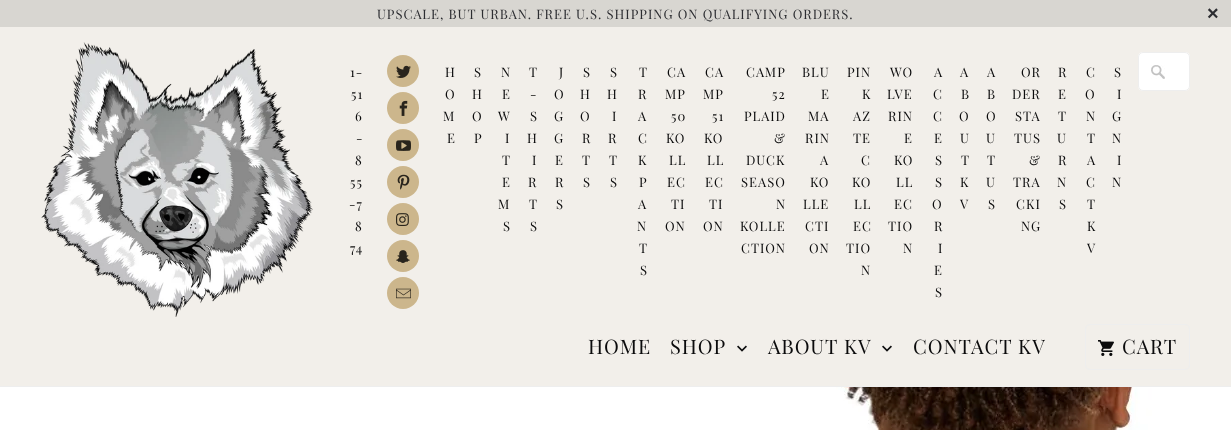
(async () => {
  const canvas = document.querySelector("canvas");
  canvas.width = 1231;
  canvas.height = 430;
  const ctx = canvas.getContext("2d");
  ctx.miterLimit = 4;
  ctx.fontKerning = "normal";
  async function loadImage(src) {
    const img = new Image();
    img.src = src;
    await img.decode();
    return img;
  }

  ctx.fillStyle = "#ffffff";
  ctx.fillRect(0, 0, 1231, 430);
  ctx.drawImage(await loadImage("img/1.png"), 0, 387, 1231, 43);
  for (const [x, y, w, h, color] of [
    [0, 0, 1231, 27, "#d8d6d1"],
    [0, 27, 1231, 359, "#f2efea"],
    [0, 386, 1231, 1, "#eeeeee"],
  ]) {
    ctx.fillStyle = color;
    ctx.fillRect(x, y, w, h);
  }
  ctx.drawImage(await loadImage("img/2.png"), 41, 42, 272, 275);
  ctx.fillStyle = "#ccb68c";
  ctx.beginPath();
  ctx.arc(403, 71, 16, 0, Math.PI * 2);
  ctx.fill();
  ctx.drawImage(await loadImage("img/3.png"), 396, 65, 15, 13);
  ctx.beginPath();
  ctx.arc(403, 108, 16, 0, Math.PI * 2);
  ctx.fill();
  ctx.drawImage(await loadImage("img/4.png"), 399, 100, 9, 16);
  ctx.beginPath();
  ctx.arc(403, 145, 16, 0, Math.PI * 2);
  ctx.fill();
  ctx.drawImage(await loadImage("img/5.png"), 396, 140, 15, 11);
  ctx.beginPath();
  ctx.arc(403, 182, 16, 0, Math.PI * 2);
  ctx.fill();
  ctx.drawImage(await loadImage("img/6.png"), 397, 174, 13, 16);
  ctx.beginPath();
  ctx.arc(403, 219, 16, 0, Math.PI * 2);
  ctx.fill();
  ctx.drawImage(await loadImage("img/7.png"), 396, 213, 13, 13);
  ctx.beginPath();
  ctx.arc(403, 256, 16, 0, Math.PI * 2);
  ctx.fill();
  ctx.drawImage(await loadImage("img/8.png"), 396, 250, 14, 13);
  ctx.beginPath();
  ctx.arc(403, 293, 16, 0, Math.PI * 2);
  ctx.fill();
  ctx.drawImage(await loadImage("img/9.png"), 396, 288, 15, 11);
  ctx.fillStyle = "#ffffff";
  ctx.beginPath();
  ctx.roundRect(1138, 52, 52, 39, 5);
  ctx.fill();
  ctx.drawImage(await loadImage("img/10.png"), 1151, 65, 14, 14);
  ctx.beginPath();
  ctx.roundRect(1138.5, 52.5, 51, 38, 4.5);
  ctx.strokeStyle = "#eeeeee";
  ctx.stroke();
  ctx.drawImage(await loadImage("img/11.png"), 737, 345, 10, 7);
  ctx.drawImage(await loadImage("img/11.png"), 882, 345, 10, 7);
  ctx.beginPath();
  ctx.roundRect(1085.5, 324.5, 104, 45, 4.5);
  ctx.stroke();
  ctx.drawImage(await loadImage("img/12.png"), 1098, 340, 16, 16);
  ctx.letterSpacing = "1px";
  ctx.font = "13px Playfair Display";
  ctx.fillStyle = "#2c2d31";
  ctx.fillText("UPSCALE, BUT URBAN. FREE U.S. SHIPPING ON QUALIFYING ORDERS.", 377, 19);
  ctx.font = "bold 20px Liberation Sans";
  ctx.fillText("×", 1207, 20);
  ctx.font = "13px Playfair Display";
  ctx.fillStyle = "#0b0b0c";
  for (const [text, x, y] of [
    ["1-", 350, 77],
    ["51", 351, 99],
    ["6", 355, 121],
    ["-", 356, 143],
    ["8", 355, 165],
    ["55", 350, 187],
    ["-7", 349, 209],
    ["8", 355, 231],
    ["74", 350, 253],
    ["H", 445, 77],
    ["O", 445, 99],
    ["M", 443, 121],
    ["E", 447, 143],
    ["S", 474, 77],
    ["H", 472, 99],
    ["O", 472, 121],
    ["P", 474, 143],
    ["N", 501, 77],
    ["E", 502, 99],
    ["W", 498, 121],
    ["I", 505, 143],
    ["T", 502, 165],
    ["E", 502, 187],
    ["M", 498, 209],
    ["S", 503, 231],
    ["T", 529, 77],
    ["-", 530, 99],
    ["S", 530, 121],
    ["H", 527, 143],
    ["I", 532, 165],
    ["R", 528, 187],
    ["T", 529, 209],
    ["S", 530, 231],
    ["J", 559, 77],
    ["O", 554, 99],
    ["G", 554, 121],
    ["G", 554, 143],
    ["E", 555, 165],
    ["R", 555, 187],
    ["S", 556, 209],
    ["S", 583, 77],
    ["H", 580, 99],
    ["O", 580, 121],
    ["R", 582, 143],
    ["T", 582, 165],
    ["S", 583, 187],
    ["S", 610, 77],
    ["H", 607, 99],
    ["I", 612, 121],
    ["R", 608, 143],
    ["T", 609, 165],
    ["S", 610, 187],
    ["T", 639, 77],
    ["R", 638, 99],
    ["A", 638, 121],
    ["C", 638, 143],
    ["K", 638, 165],
    ["P", 639, 187],
    ["A", 638, 209],
    ["N", 637, 231],
    ["T", 639, 253],
    ["S", 640, 275],
    ["CA", 667, 77],
    ["MP", 665, 99],
    ["50", 671, 121],
    ["KO", 666, 143],
    ["LL", 669, 165],
    ["EC", 667, 187],
    ["TI", 671, 209],
    ["ON", 665, 231],
    ["CA", 705, 77],
    ["MP", 703, 99],
    ["51", 712, 121],
    ["KO", 704, 143],
    ["LL", 707, 165],
    ["EC", 705, 187],
    ["TI", 709, 209],
    ["ON", 703, 231],
    ["CAMP", 746, 77],
    ["52", 772, 99],
    ["PLAID", 744, 121],
    ["&", 774, 143],
    ["DUCK", 746, 165],
    ["SEASO", 741, 187],
    ["N", 776, 209],
    ["KOLLE", 740, 231],
    ["CTION", 741, 253],
    ["BLU", 802, 77],
    ["E", 821, 99],
    ["MA", 808, 121],
    ["RIN", 805, 143],
    ["A", 820, 165],
    ["KO", 810, 187],
    ["LLE", 803, 209],
    ["CTI", 805, 231],
    ["ON", 809, 253],
    ["PIN", 847, 77],
    ["K", 862, 99],
    ["AZ", 853, 121],
    ["TE", 853, 143],
    ["C", 861, 165],
    ["KO", 852, 187],
    ["LL", 854, 209],
    ["EC", 853, 231],
    ["TIO", 846, 253],
    ["N", 861, 275],
    ["WO", 890, 77],
    ["LVE", 887, 99],
    ["RIN", 888, 121],
    ["E", 904, 143],
    ["KO", 894, 165],
    ["LL", 896, 187],
    ["EC", 894, 209],
    ["TIO", 888, 231],
    ["N", 903, 253],
    ["A", 934, 77],
    ["C", 933, 99],
    ["C", 933, 121],
    ["E", 934, 143],
    ["S", 935, 165],
    ["S", 935, 187],
    ["O", 932, 209],
    ["R", 934, 231],
    ["I", 938, 253],
    ["E", 934, 275],
    ["S", 935, 297],
    ["A", 960, 77],
    ["B", 961, 99],
    ["O", 959, 121],
    ["U", 960, 143],
    ["T", 961, 165],
    ["K", 960, 187],
    ["V", 960, 209],
    ["A", 987, 77],
    ["B", 987, 99],
    ["O", 986, 121],
    ["U", 986, 143],
    ["T", 987, 165],
    ["U", 986, 187],
    ["S", 988, 209],
    ["OR", 1021, 77],
    ["DER", 1012, 99],
    ["STA", 1015, 121],
    ["TUS", 1014, 143],
    ["&", 1029, 165],
    ["TRA", 1013, 187],
    ["CKI", 1016, 209],
    ["NG", 1021, 231],
    ["R", 1058, 77],
    ["E", 1058, 99],
    ["T", 1058, 121],
    ["U", 1057, 143],
    ["R", 1058, 165],
    ["N", 1057, 187],
    ["S", 1059, 209],
    ["C", 1086, 77],
    ["O", 1085, 99],
    ["N", 1086, 121],
    ["T", 1087, 143],
    ["A", 1087, 165],
    ["C", 1086, 187],
    ["T", 1087, 209],
    ["K", 1087, 231],
    ["V", 1087, 253],
    ["S", 1114, 77],
    ["I", 1117, 99],
    ["G", 1112, 121],
    ["N", 1112, 143],
    ["I", 1117, 165],
    ["N", 1112, 187],
  ]) {
    ctx.fillText(text, x, y);
  }
  ctx.font = "20px Playfair Display";
  for (const [text, x, y] of [
    ["HOME", 588, 354],
    ["SHOP", 670, 354],
    ["ABOUT KV", 768, 354],
    ["CONTACT KV", 913, 354],
    ["CART", 1122, 354],
  ]) {
    ctx.fillText(text, x, y);
  }
})();
